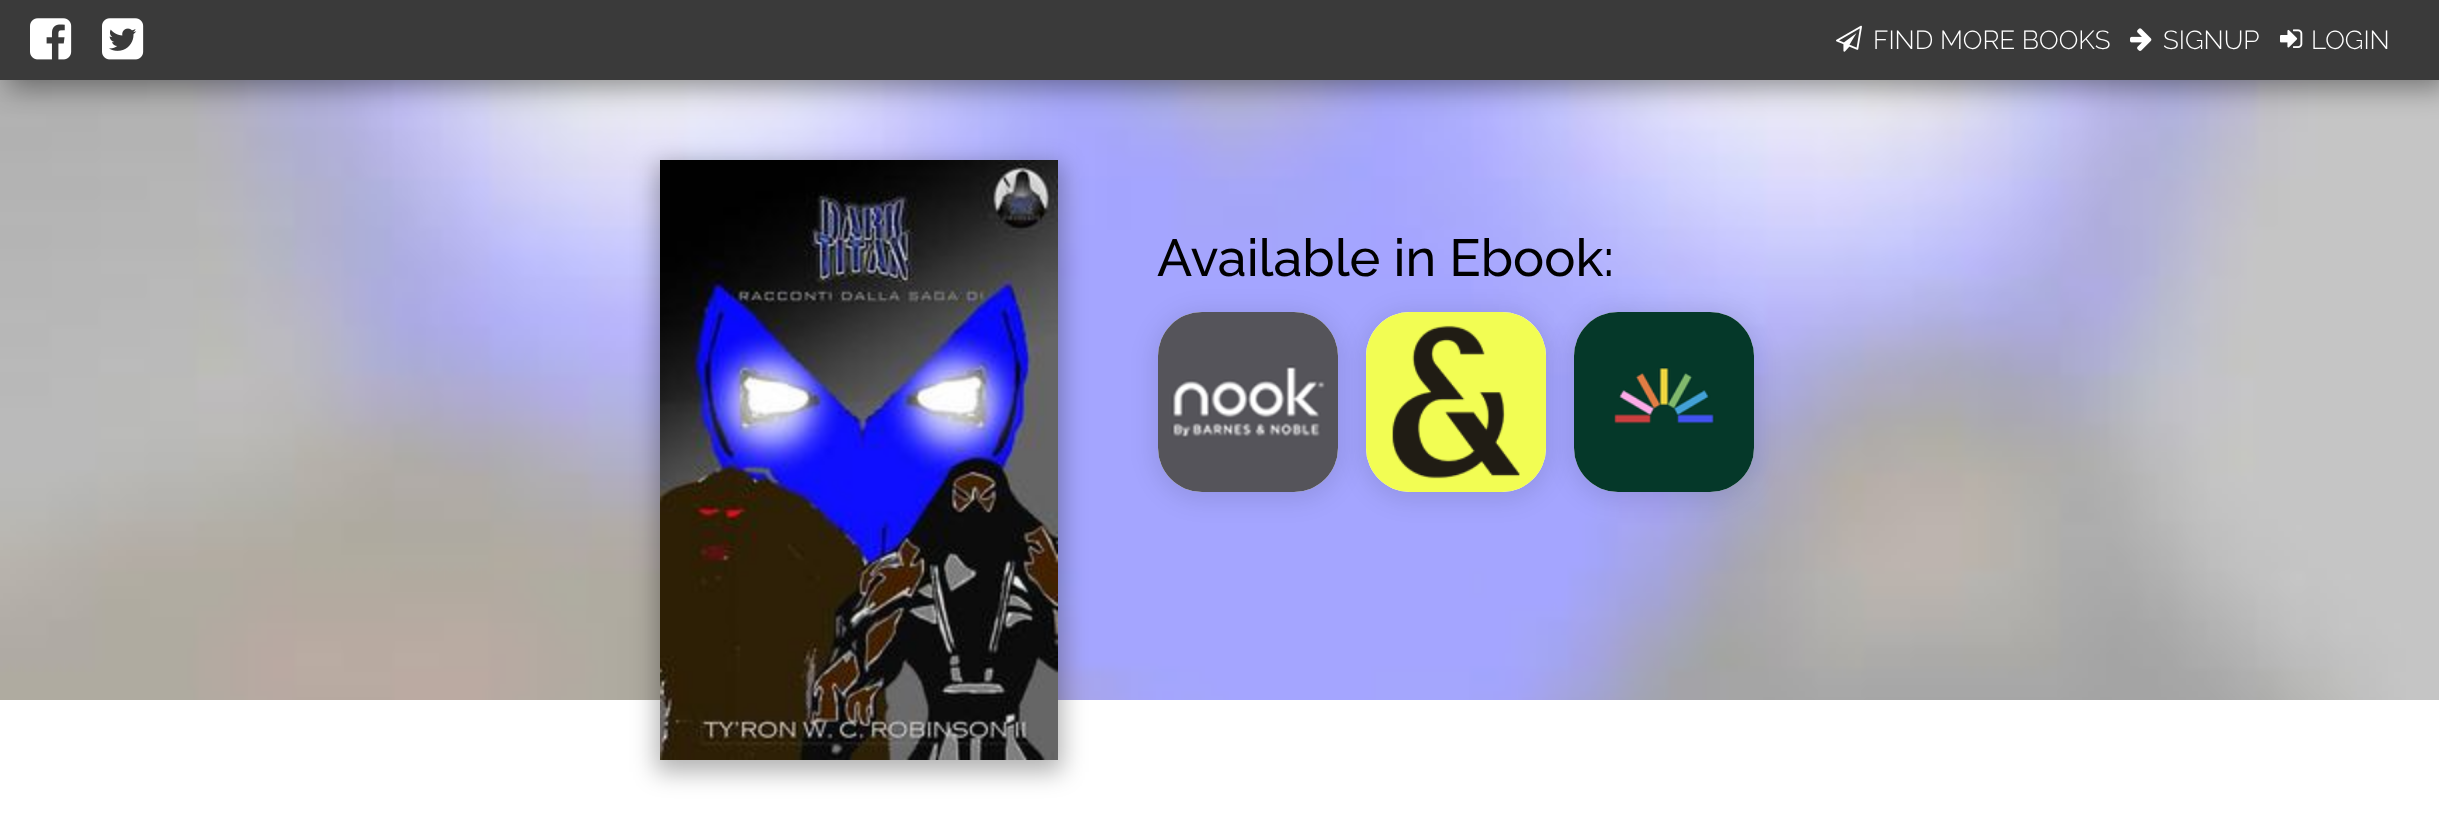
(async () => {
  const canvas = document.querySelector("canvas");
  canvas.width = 2439;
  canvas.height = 826;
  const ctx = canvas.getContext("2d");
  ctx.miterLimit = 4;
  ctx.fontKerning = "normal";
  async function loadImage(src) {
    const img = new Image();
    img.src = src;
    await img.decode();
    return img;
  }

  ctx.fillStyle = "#ffffff";
  ctx.fillRect(0, 0, 2439, 826);
  ctx.drawImage(await loadImage("img/1.png"), 0, 80, 2439, 620);
  ctx.fillStyle = "rgba(0, 0, 0, 0.4)";
  ctx.filter = "blur(14px)";
  ctx.beginPath();
  ctx.rect(8, 8, 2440, 80);
  ctx.fill();
  ctx.filter = "none";
  ctx.fillStyle = "#3a3a3a";
  ctx.fillRect(0, 0, 2439, 80);
  ctx.drawImage(await loadImage("img/2.png"), 30, 18, 42, 42);
  ctx.drawImage(await loadImage("img/3.png"), 102, 18, 42, 42);
  ctx.drawImage(await loadImage("img/4.png"), 1836, 25, 26, 27);
  ctx.drawImage(await loadImage("img/5.png"), 2130, 28, 22, 23);
  ctx.drawImage(await loadImage("img/6.png"), 2280, 29, 23, 19);
  ctx.fillStyle = "rgba(0, 0, 0, 0.3)";
  ctx.filter = "blur(12px)";
  ctx.beginPath();
  ctx.rect(656, 164, 406, 608);
  ctx.fill();
  ctx.filter = "none";
  ctx.drawImage(await loadImage("img/7.png"), 660, 160, 398, 600);
  ctx.fillStyle = "rgba(0, 0, 0, 0.1)";
  ctx.filter = "blur(12px)";
  ctx.beginPath();
  ctx.roundRect(1154, 312, 188, 188, 48);
  ctx.fill();
  ctx.filter = "none";
  ctx.fillStyle = "#ffffff";
  ctx.beginPath();
  ctx.roundRect(1158, 312, 180, 180, 44);
  ctx.fill();
  ctx.drawImage(await loadImage("img/8.png"), 1158, 312, 180, 180);
  ctx.fillStyle = "rgba(0, 0, 0, 0.1)";
  ctx.filter = "blur(12px)";
  ctx.beginPath();
  ctx.roundRect(1362, 312, 188, 188, 48);
  ctx.fill();
  ctx.filter = "none";
  ctx.fillStyle = "#ffffff";
  ctx.beginPath();
  ctx.roundRect(1366, 312, 180, 180, 44);
  ctx.fill();
  ctx.drawImage(await loadImage("img/9.png"), 1366, 312, 180, 180);
  ctx.fillStyle = "rgba(0, 0, 0, 0.1)";
  ctx.filter = "blur(12px)";
  ctx.beginPath();
  ctx.roundRect(1570, 312, 188, 188, 48);
  ctx.fill();
  ctx.filter = "none";
  ctx.fillStyle = "#ffffff";
  ctx.beginPath();
  ctx.roundRect(1574, 312, 180, 180, 44);
  ctx.fill();
  ctx.drawImage(await loadImage("img/10.png"), 1574, 312, 180, 180);
  ctx.font = "300 26px Raleway";
  for (const [text, x, y] of [
    ["FIND MORE BOOKS", 1873, 49],
    ["SIGNUP", 2163, 49],
    ["LOGIN", 2311, 49],
  ]) {
    ctx.fillText(text, x, y);
  }
  ctx.font = "500 52px Raleway";
  ctx.fillStyle = "#000000";
  ctx.fillText("Available in Ebook:", 1157, 276);
})();
